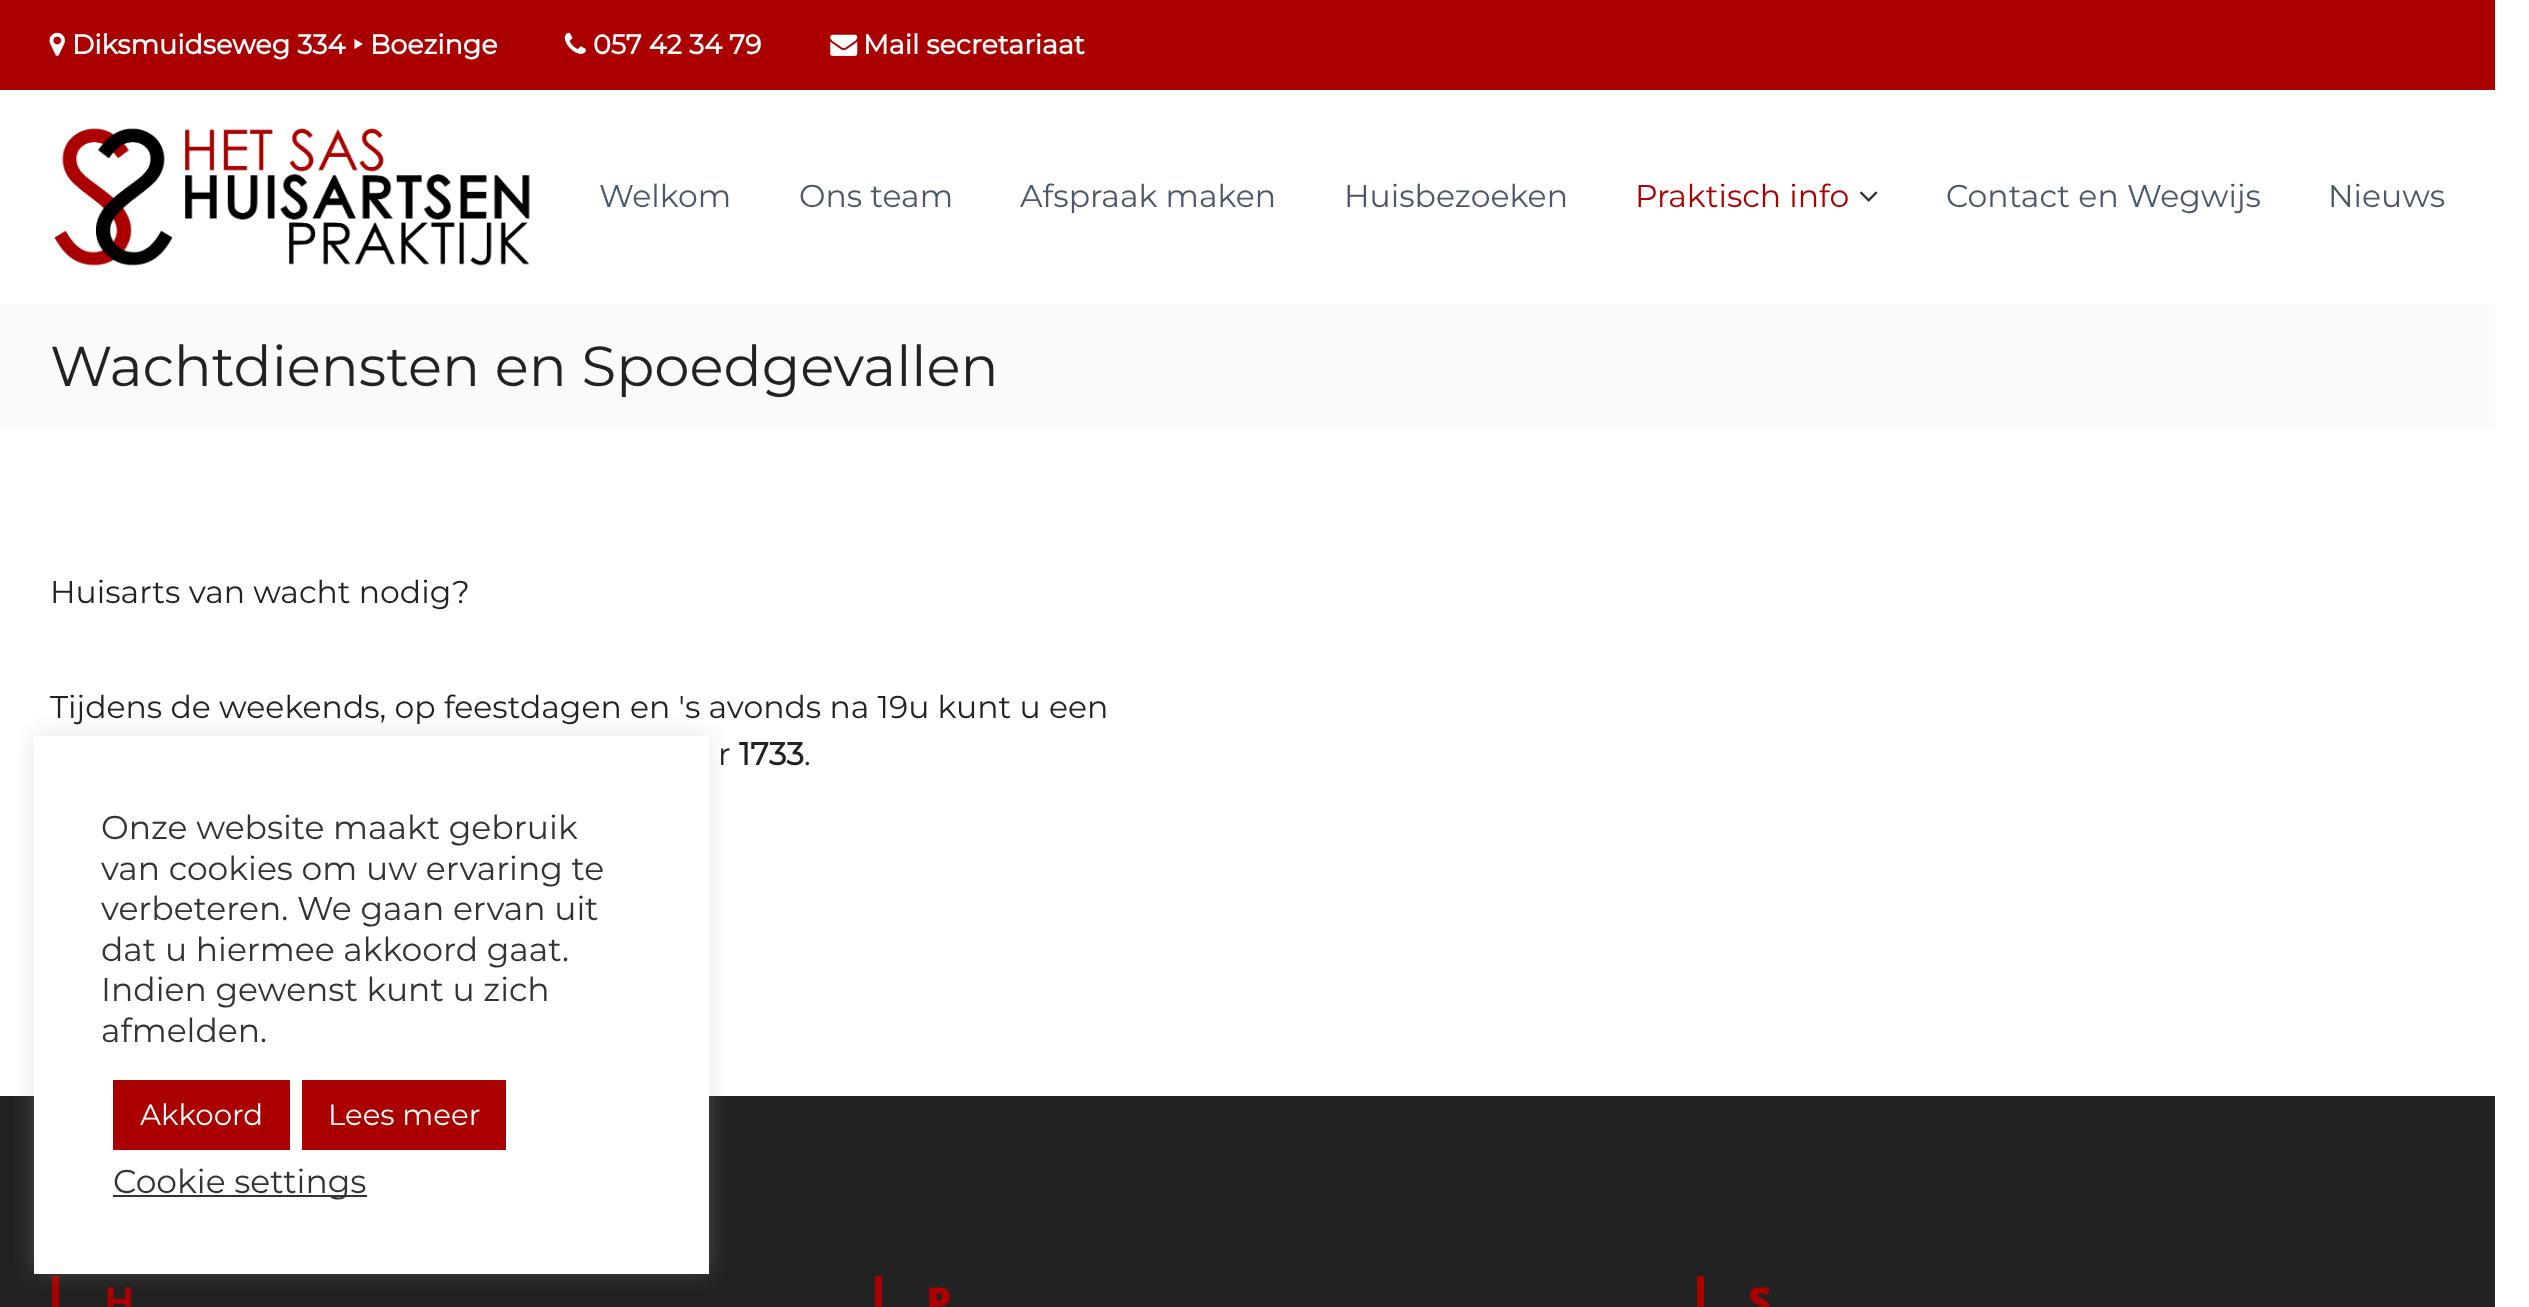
(async () => {
  const canvas = document.querySelector("canvas");
  canvas.width = 2529;
  canvas.height = 1307;
  const ctx = canvas.getContext("2d");
  ctx.miterLimit = 4;
  ctx.fontKerning = "normal";
  async function loadImage(src) {
    const img = new Image();
    img.src = src;
    await img.decode();
    return img;
  }

  ctx.fillStyle = "#ffffff";
  ctx.fillRect(0, 0, 2529, 1307);
  ctx.fillStyle = "#aa0000";
  ctx.fillRect(0, 0, 2495, 90);
  ctx.drawImage(await loadImage("img/1.png"), 49, 32, 16, 24);
  ctx.drawImage(await loadImage("img/2.png"), 564, 32, 22, 22);
  ctx.drawImage(await loadImage("img/3.png"), 830, 34, 28, 22);
  ctx.drawImage(await loadImage("img/4.png"), 54, 128, 476, 138);
  ctx.drawImage(await loadImage("img/5.png"), 1859, 191, 19, 11);
  for (const [x, y, w, h, color] of [
    [0, 304, 2495, 126, "#fafafa"],
    [0, 1096, 2495, 211, "#222222"],
    [52, 1276, 7, 31, "#aa0000"],
    [875, 1276, 7, 31, "#aa0000"],
    [1697, 1276, 7, 31, "#aa0000"],
  ]) {
    ctx.fillStyle = color;
    ctx.fillRect(x, y, w, h);
  }
  ctx.fillStyle = "rgba(172, 171, 171, 0.3)";
  ctx.filter = "blur(11px)";
  ctx.beginPath();
  ctx.rect(34, 734, 675, 537);
  ctx.fill();
  ctx.filter = "none";
  for (const [x, y, w, h, color] of [
    [34, 736, 675, 538, "#ffffff"],
    [113, 1080, 177, 70, "#aa0000"],
    [302, 1080, 204, 70, "#aa0000"],
    [113, 1195, 254, 2, "#333333"],
  ]) {
    ctx.fillStyle = color;
    ctx.fillRect(x, y, w, h);
  }
  ctx.font = "bold 27px Montserrat";
  ctx.fillStyle = "#ffffff";
  ctx.fillText("Diksmuidseweg 334", 72, 54);
  ctx.font = "bold 27px Noto Sans";
  ctx.fillText("‣", 353, 54);
  ctx.font = "bold 27px Montserrat";
  for (const [text, x, y] of [
    ["Boezinge", 370, 54],
    ["057 42 34 79", 593, 54],
    ["Mail secretariaat", 863, 54],
  ]) {
    ctx.fillText(text, x, y);
  }
  ctx.font = "31.5px Montserrat";
  ctx.fillStyle = "#4c5867";
  for (const [text, x, y] of [
    ["Welkom", 599, 207],
    ["Ons team", 799, 207],
    ["Afspraak maken", 1020, 207],
    ["Huisbezoeken", 1344, 207],
  ]) {
    ctx.fillText(text, x, y);
  }
  ctx.fillStyle = "#aa0000";
  ctx.fillText("Praktisch info", 1635, 207);
  ctx.fillStyle = "#4c5867";
  ctx.fillText("Contact en Wegwijs", 1946, 207);
  ctx.fillText("Nieuws", 2328, 207);
  ctx.font = "56.25px Montserrat";
  ctx.fillStyle = "#222222";
  ctx.fillText("Wachtdiensten en Spoedgevallen", 50, 386);
  ctx.font = "31.5px Montserrat";
  for (const [text, x, y] of [
    ["Huisarts van wacht nodig?", 50, 603],
    ["Tijdens de weekends, op feestdagen en 's avonds na 19u kunt u een", 50, 718],
    ["r", 718, 765],
  ]) {
    ctx.fillText(text, x, y);
  }
  ctx.font = "bold 31.5px Montserrat";
  ctx.fillText("1733", 739, 765);
  ctx.font = "31.5px Montserrat";
  ctx.fillText(".", 804, 765);
  ctx.font = "bold 40px Noto Sans";
  ctx.fillStyle = "#aa0000";
  ctx.fillText("H", 104, 1316);
  ctx.font = "900 40px Noto Sans";
  ctx.fillText("P", 926, 1316);
  ctx.fillText("S", 1748, 1316);
  ctx.font = "33px Montserrat";
  ctx.fillStyle = "#333333";
  for (const [text, x, y] of [
    ["Onze website maakt gebruik", 101, 839],
    ["van cookies om uw ervaring te", 101, 880],
    ["verbeteren. We gaan ervan uit", 101, 920],
    ["dat u hiermee akkoord gaat.", 101, 961],
    ["Indien gewenst kunt u zich", 101, 1001],
    ["afmelden.", 101, 1042],
  ]) {
    ctx.fillText(text, x, y);
  }
  ctx.font = "29.25px Montserrat";
  ctx.fillStyle = "#ffffff";
  ctx.fillText("Akkoord", 140, 1125);
  ctx.fillText("Lees meer", 328, 1125);
  ctx.font = "33px Montserrat";
  ctx.fillStyle = "#333333";
  ctx.fillText("Cookie settings", 113, 1193);
})();
